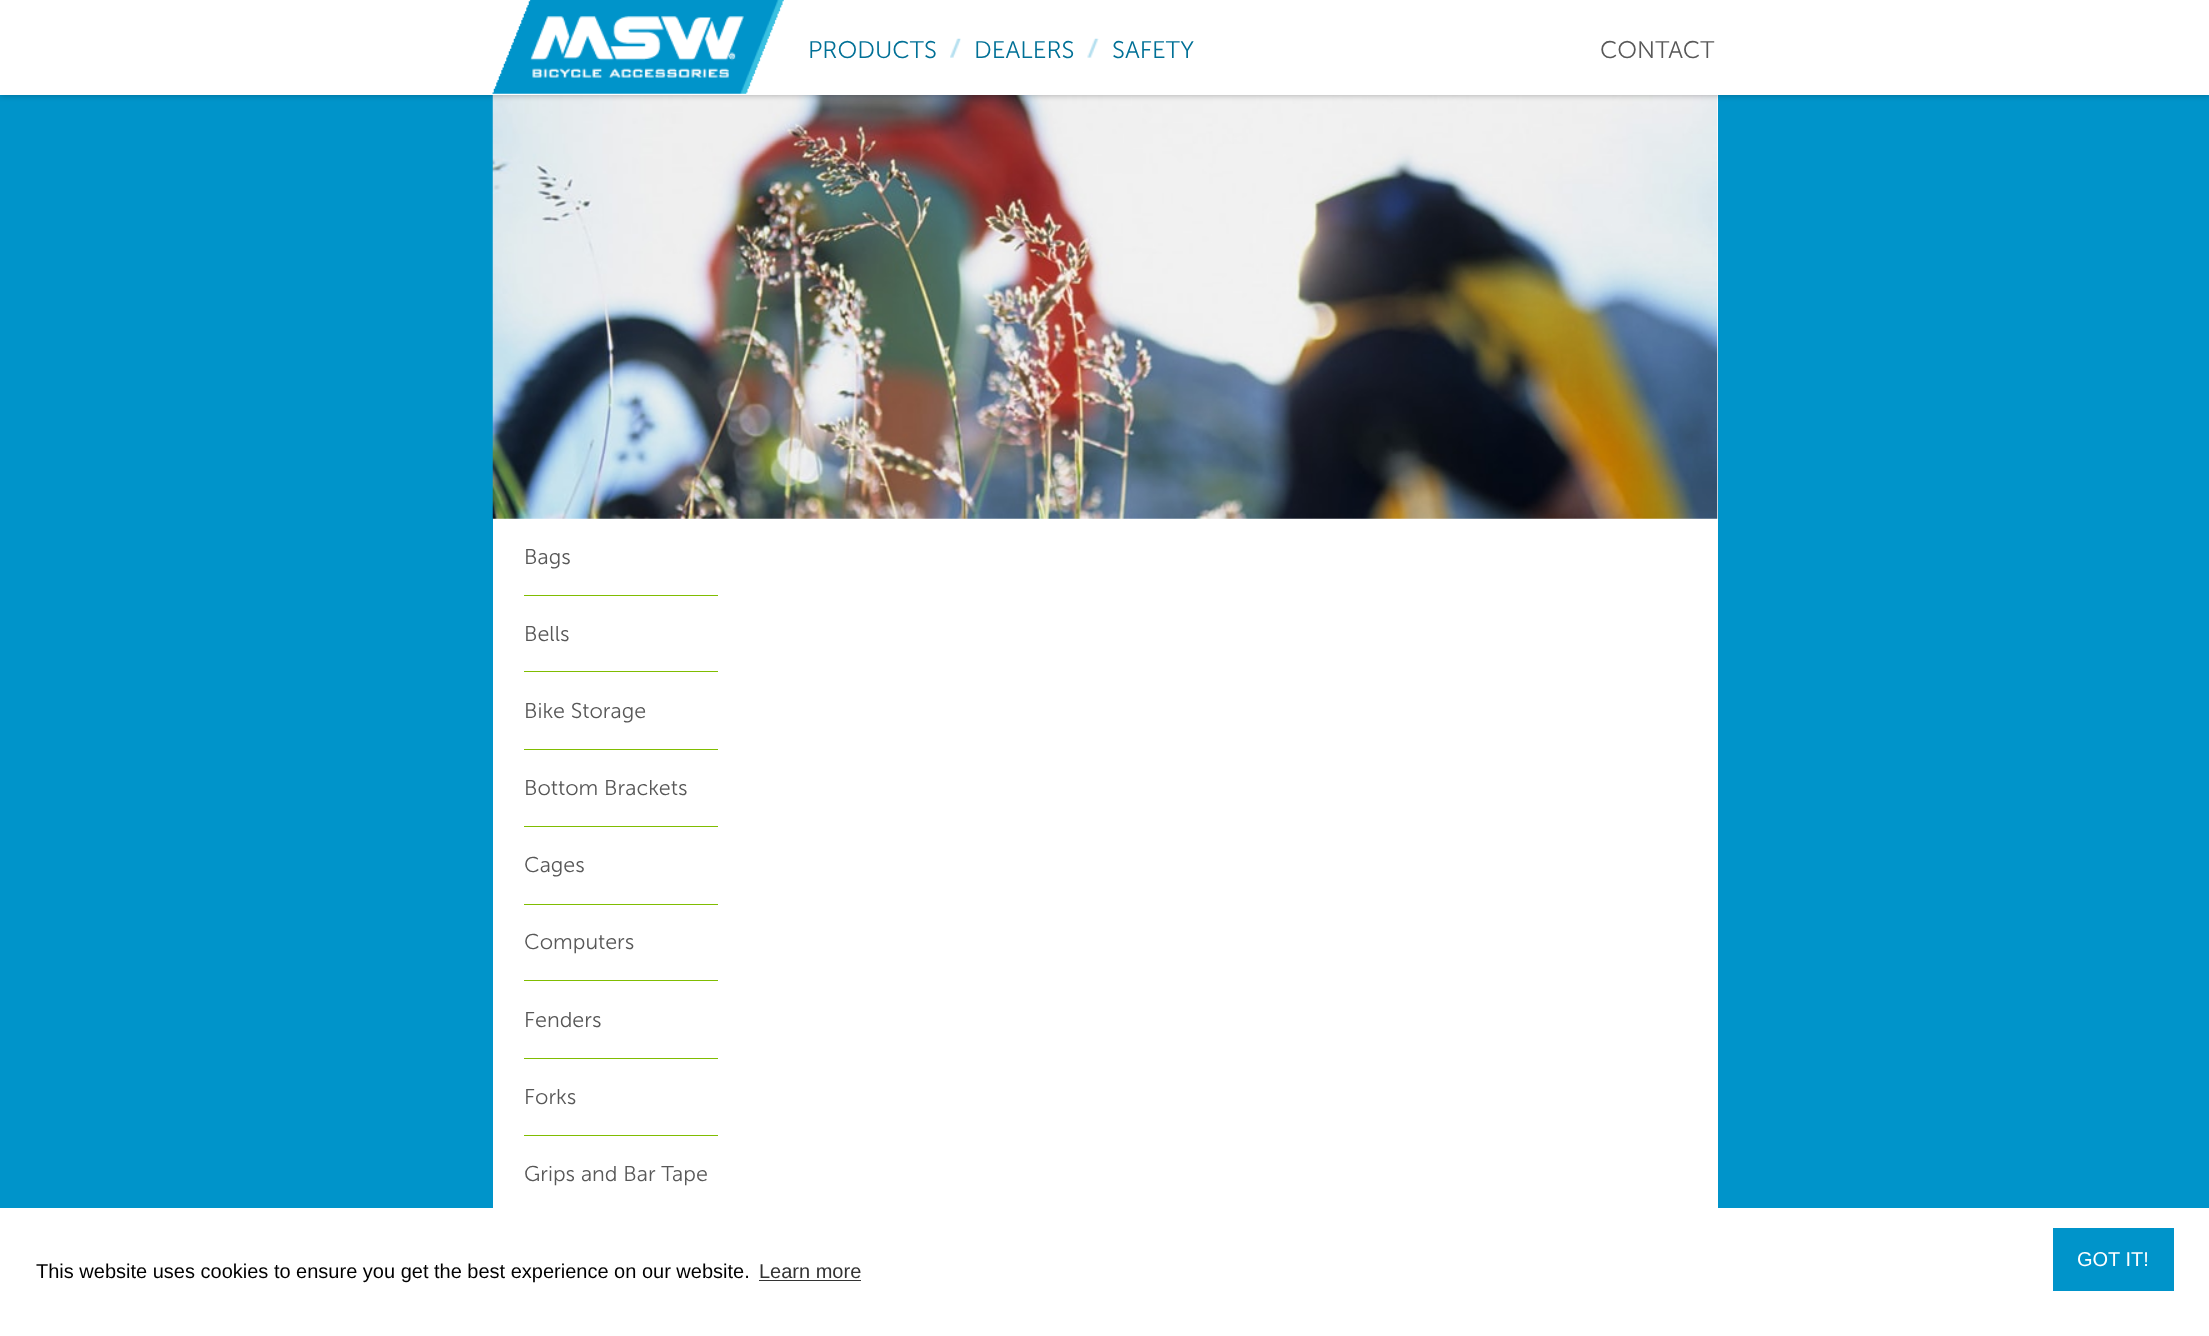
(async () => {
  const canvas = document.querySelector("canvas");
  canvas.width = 2209;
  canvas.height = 1336;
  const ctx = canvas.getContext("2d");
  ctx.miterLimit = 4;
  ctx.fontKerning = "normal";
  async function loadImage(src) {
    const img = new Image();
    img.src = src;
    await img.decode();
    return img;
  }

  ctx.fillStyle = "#0094ca";
  ctx.fillRect(0, 0, 2209, 1336);
  ctx.fillStyle = "#ffffff";
  ctx.fillRect(493, 95, 1225, 1113);
  ctx.drawImage(await loadImage("img/4.png"), 492, 95, 1226, 424);
  ctx.fillStyle = "rgba(0, 0, 0, 0.3)";
  ctx.filter = "blur(3px)";
  ctx.beginPath();
  ctx.rect(0, 0, 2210, 95);
  ctx.fill();
  ctx.filter = "none";
  ctx.fillStyle = "#ffffff";
  ctx.fillRect(0, 0, 2209, 95);
  ctx.drawImage(await loadImage("img/1.png"), 492, 0, 292, 94);
  ctx.drawImage(await loadImage("img/2.png"), 950, 38, 11, 20);
  ctx.drawImage(await loadImage("img/3.png"), 1087, 38, 12, 20);
  for (const [x, y, w, h, color] of [
    [524, 595, 194, 1, "#80bd01"],
    [524, 671, 194, 1, "#80bd01"],
    [524, 749, 194, 1, "#80bd01"],
    [524, 826, 194, 1, "#80bd01"],
    [524, 904, 194, 1, "#80bd01"],
    [524, 980, 194, 1, "#80bd01"],
    [524, 1058, 194, 1, "#80bd01"],
    [524, 1135, 194, 1, "#80bd01"],
    [0, 1208, 2209, 128, "#ffffff"],
    [2053, 1228, 121, 63, "#0094ca"],
    [759, 1280, 102, 1, "#333333"],
  ]) {
    ctx.fillStyle = color;
    ctx.fillRect(x, y, w, h);
  }
  ctx.font = "300 24px 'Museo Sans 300'";
  ctx.fillStyle = "#007096";
  for (const [text, x, y] of [
    ["PRODUCTS", 808, 58],
    ["DEALERS", 974, 58],
    ["SAFETY", 1112, 58],
  ]) {
    ctx.fillText(text, x, y);
  }
  ctx.fillStyle = "#585858";
  ctx.fillText("CONTACT", 1600, 58);
  ctx.font = "300 21.5px 'Museo Sans 300'";
  for (const [text, x, y] of [
    ["Bags", 524, 564],
    ["Bells", 524, 641],
    ["Bike Storage", 524, 718],
    ["Bottom Brackets", 524, 795],
    ["Cages", 524, 872],
    ["Computers", 524, 949],
    ["Fenders", 524, 1027],
    ["Forks", 524, 1104],
    ["Grips and Bar Tape", 524, 1181],
  ]) {
    ctx.fillText(text, x, y);
  }
  ctx.font = "20px Liberation Sans";
  ctx.fillStyle = "#ffffff";
  ctx.fillText("GOT IT!", 2077, 1266);
  ctx.fillStyle = "#000000";
  ctx.fillText("This website uses cookies to ensure you get the best experience on our website.", 36, 1278);
  ctx.fillStyle = "#333333";
  ctx.fillText("Learn more", 759, 1278);
})();
